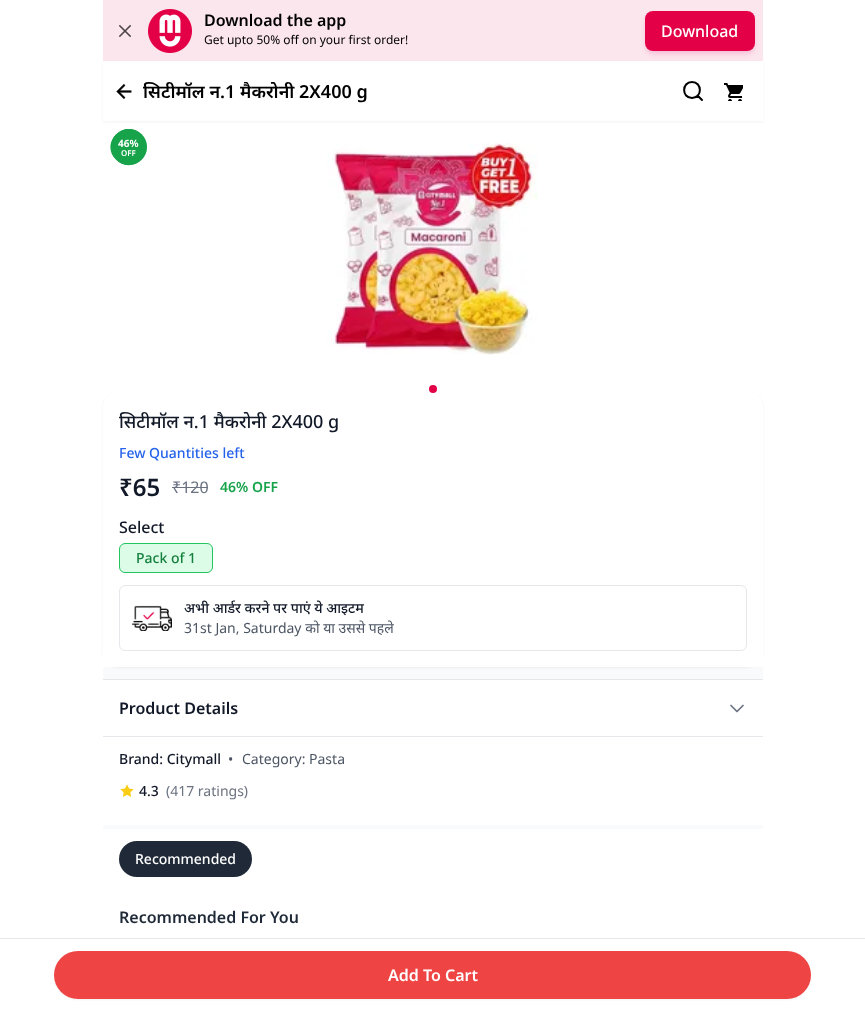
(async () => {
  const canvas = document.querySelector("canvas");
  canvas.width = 865;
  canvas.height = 1011;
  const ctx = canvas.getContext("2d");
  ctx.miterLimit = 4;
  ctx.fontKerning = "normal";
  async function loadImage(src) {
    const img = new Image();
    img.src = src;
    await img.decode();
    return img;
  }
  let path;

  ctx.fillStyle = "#ffffff";
  ctx.fillRect(0, 0, 865, 1011);
  ctx.fillStyle = "#fce6ed";
  ctx.fillRect(103, 0, 660, 61);
  ctx.drawImage(await loadImage("img/1.png"), 119, 25, 12, 12);
  ctx.drawImage(await loadImage("img/2.png"), 148, 9, 44, 44);
  ctx.fillStyle = "rgba(236, 72, 153, 0.2)";
  ctx.filter = "blur(2px)";
  ctx.beginPath();
  ctx.roundRect(647, 15, 106, 36, 6);
  ctx.fill();
  ctx.filter = "none";
  ctx.filter = "blur(3px)";
  ctx.beginPath();
  ctx.roundRect(646, 16, 108, 38, 7);
  ctx.fill();
  ctx.filter = "none";
  ctx.fillStyle = "#e40046";
  ctx.beginPath();
  ctx.roundRect(645, 11, 110, 40, 8);
  ctx.fill();
  ctx.fillStyle = "#f9fafb";
  ctx.fillRect(103, 401, 660, 428);
  ctx.fillStyle = "rgba(0, 0, 0, 0.05)";
  ctx.filter = "blur(1px)";
  ctx.beginPath();
  ctx.rect(103, 62, 660, 60);
  ctx.fill();
  ctx.filter = "none";
  ctx.fillStyle = "#ffffff";
  ctx.fillRect(103, 61, 660, 60);
  ctx.drawImage(await loadImage("img/3.png"), 116, 84, 16, 15);
  path = new Path2D("M692 98C702.5 98 702.5 82 692 82C681.5 82 681.5 98 692 98ZM702 100L697.5 95.5");
  ctx.strokeStyle = "#000000";
  ctx.lineWidth = 2;
  ctx.lineCap = "round";
  ctx.lineJoin = "round";
  ctx.stroke(path);
  ctx.drawImage(await loadImage("img/4.png"), 724, 83, 19, 18);
  ctx.fillStyle = "#16a34a";
  ctx.beginPath();
  ctx.arc(129, 147, 18, 0, Math.PI * 2);
  ctx.fill();
  path = new Path2D("M141 134.5C148.5 141.5 148.5 152.5 141 159.5C134 167 123 167 116 159.5C108.5 152.5 108.5 141.5 116 134.5C123 127 134 127 141 134.5Z");
  ctx.fill(path);
  ctx.drawImage(await loadImage("img/5.png"), 327, 143, 211, 212);
  ctx.fillStyle = "rgba(0, 0, 0, 0.05)";
  ctx.filter = "blur(1px)";
  ctx.beginPath();
  ctx.roundRect(103, 392, 660, 276, 16);
  ctx.fill();
  ctx.filter = "none";
  ctx.fillStyle = "#ffffff";
  ctx.beginPath();
  ctx.roundRect(103, 391, 660, 276, [16, 16, 0, 0]);
  ctx.fill();
  ctx.fillStyle = "#e40046";
  ctx.beginPath();
  ctx.arc(433, 389, 4, 0, Math.PI * 2);
  ctx.fill();
  ctx.fillStyle = "#6b7280";
  ctx.fillRect(172, 487, 36, 1);
  ctx.fillStyle = "#dcfce7";
  ctx.beginPath();
  ctx.roundRect(119.5, 543.5, 93, 29, 5.5);
  ctx.fill();
  ctx.strokeStyle = "#22c55e";
  ctx.lineWidth = 1;
  ctx.lineJoin = "miter";
  ctx.stroke();
  ctx.beginPath();
  ctx.roundRect(119.5, 585.5, 627, 65, 5.5);
  ctx.strokeStyle = "#e5e7eb";
  ctx.stroke();
  ctx.drawImage(await loadImage("img/6.png"), 132, 605, 40, 26);
  for (const [x, y, w, h, color] of [
    [103, 680, 660, 56, "#ffffff"],
    [103, 679, 660, 1, "#e5e7eb"],
    [103, 736, 660, 1, "#e5e7eb"],
  ]) {
    ctx.fillStyle = color;
    ctx.fillRect(x, y, w, h);
  }
  path = new Path2D("M743 705.5L737 711.5L731 705.5");
  ctx.strokeStyle = "#6b7280";
  ctx.lineWidth = 1.7;
  ctx.lineJoin = "round";
  ctx.stroke(path);
  ctx.fillStyle = "#ffffff";
  ctx.fillRect(103, 737, 660, 88);
  ctx.drawImage(await loadImage("img/7.png"), 120, 784, 14, 13);
  ctx.fillStyle = "#1f2937";
  ctx.beginPath();
  ctx.roundRect(119, 841, 133, 36, 18);
  ctx.fill();
  ctx.fillStyle = "#e5e7eb";
  ctx.fillRect(0, 938, 865, 1);
  ctx.fillStyle = "rgba(0, 0, 0, 0.05)";
  ctx.filter = "blur(1px)";
  ctx.beginPath();
  ctx.roundRect(54, 952, 757, 48, 24);
  ctx.fill();
  ctx.filter = "none";
  ctx.fillStyle = "#ef4444";
  ctx.beginPath();
  ctx.roundRect(54, 951, 757, 48, 24);
  ctx.fill();
  ctx.font = "600 16px Noto Sans";
  ctx.fillStyle = "#000000";
  ctx.fillText("Download the app", 204, 26);
  ctx.font = "12px Noto Sans";
  ctx.fillText("Get upto 50% off on your first order!", 204, 44);
  ctx.font = "500 16px Noto Sans";
  ctx.fillStyle = "#ffffff";
  ctx.fillText("Download", 661, 37);
  ctx.save();
  ctx.beginPath();
  ctx.rect(143, 77, 524, 28);
  ctx.clip();
  ctx.font = "600 18px Noto Sans";
  ctx.fillStyle = "#000000";
  ctx.fillText("सिटीमॉल न.1 मैकरोनी 2X400 g", 143, 98);
  ctx.restore();
  ctx.font = "bold 10px Noto Sans";
  ctx.fillText("46%", 118, 147);
  ctx.font = "600 8px Noto Sans";
  ctx.fillText("OFF", 121, 156);
  ctx.font = "500 18px Noto Sans";
  ctx.fillStyle = "#111827";
  ctx.fillText("सिटीमॉल न.1 मैकरोनी 2X400 g", 119, 428);
  ctx.font = "500 14px Noto Sans";
  ctx.fillStyle = "#2563eb";
  ctx.fillText("Few Quantities left", 119, 458);
  ctx.font = "600 24px Noto Sans";
  ctx.fillStyle = "#111827";
  ctx.fillText("₹65", 119, 496);
  ctx.font = "16px Noto Sans";
  ctx.fillStyle = "#6b7280";
  ctx.fillText("₹120", 172, 493);
  ctx.font = "600 14px Noto Sans";
  ctx.fillStyle = "#16a34a";
  ctx.fillText("46% OFF", 220, 492);
  ctx.font = "500 16px Noto Sans";
  ctx.fillStyle = "#111827";
  ctx.fillText("Select", 119, 533);
  ctx.font = "500 14px Noto Sans";
  ctx.fillStyle = "#15803d";
  ctx.fillText("Pack of 1", 136, 563);
  ctx.fillStyle = "#111827";
  ctx.fillText("अभी आर्डर करने पर पाएं ये आइटम", 184, 613);
  ctx.font = "14px Noto Sans";
  ctx.fillStyle = "#4b5563";
  ctx.fillText("31st Jan, Saturday को या उससे पहले", 184, 633);
  ctx.font = "600 16px Noto Sans";
  ctx.fillStyle = "#111827";
  ctx.fillText("Product Details", 119, 714);
  ctx.font = "500 14px Noto Sans";
  ctx.fillText("Brand: Citymall", 119, 764);
  ctx.font = "14px Noto Sans";
  ctx.fillStyle = "#4b5563";
  ctx.fillText("•", 228, 764);
  ctx.fillText("Category: Pasta", 242, 764);
  ctx.font = "500 14px Noto Sans";
  ctx.fillStyle = "#111827";
  ctx.fillText("4.3", 139, 796);
  ctx.font = "14px Noto Sans";
  ctx.fillStyle = "#6b7280";
  ctx.fillText("(417 ratings)", 166, 796);
  ctx.font = "500 14px Noto Sans";
  ctx.fillStyle = "#ffffff";
  ctx.fillText("Recommended", 135, 864);
  ctx.font = "600 16px Noto Sans";
  ctx.fillStyle = "#1f2937";
  ctx.fillText("Recommended For You", 119, 923);
  ctx.fillStyle = "#ffffff";
  ctx.fillText("Add To Cart", 388, 981);
})();
